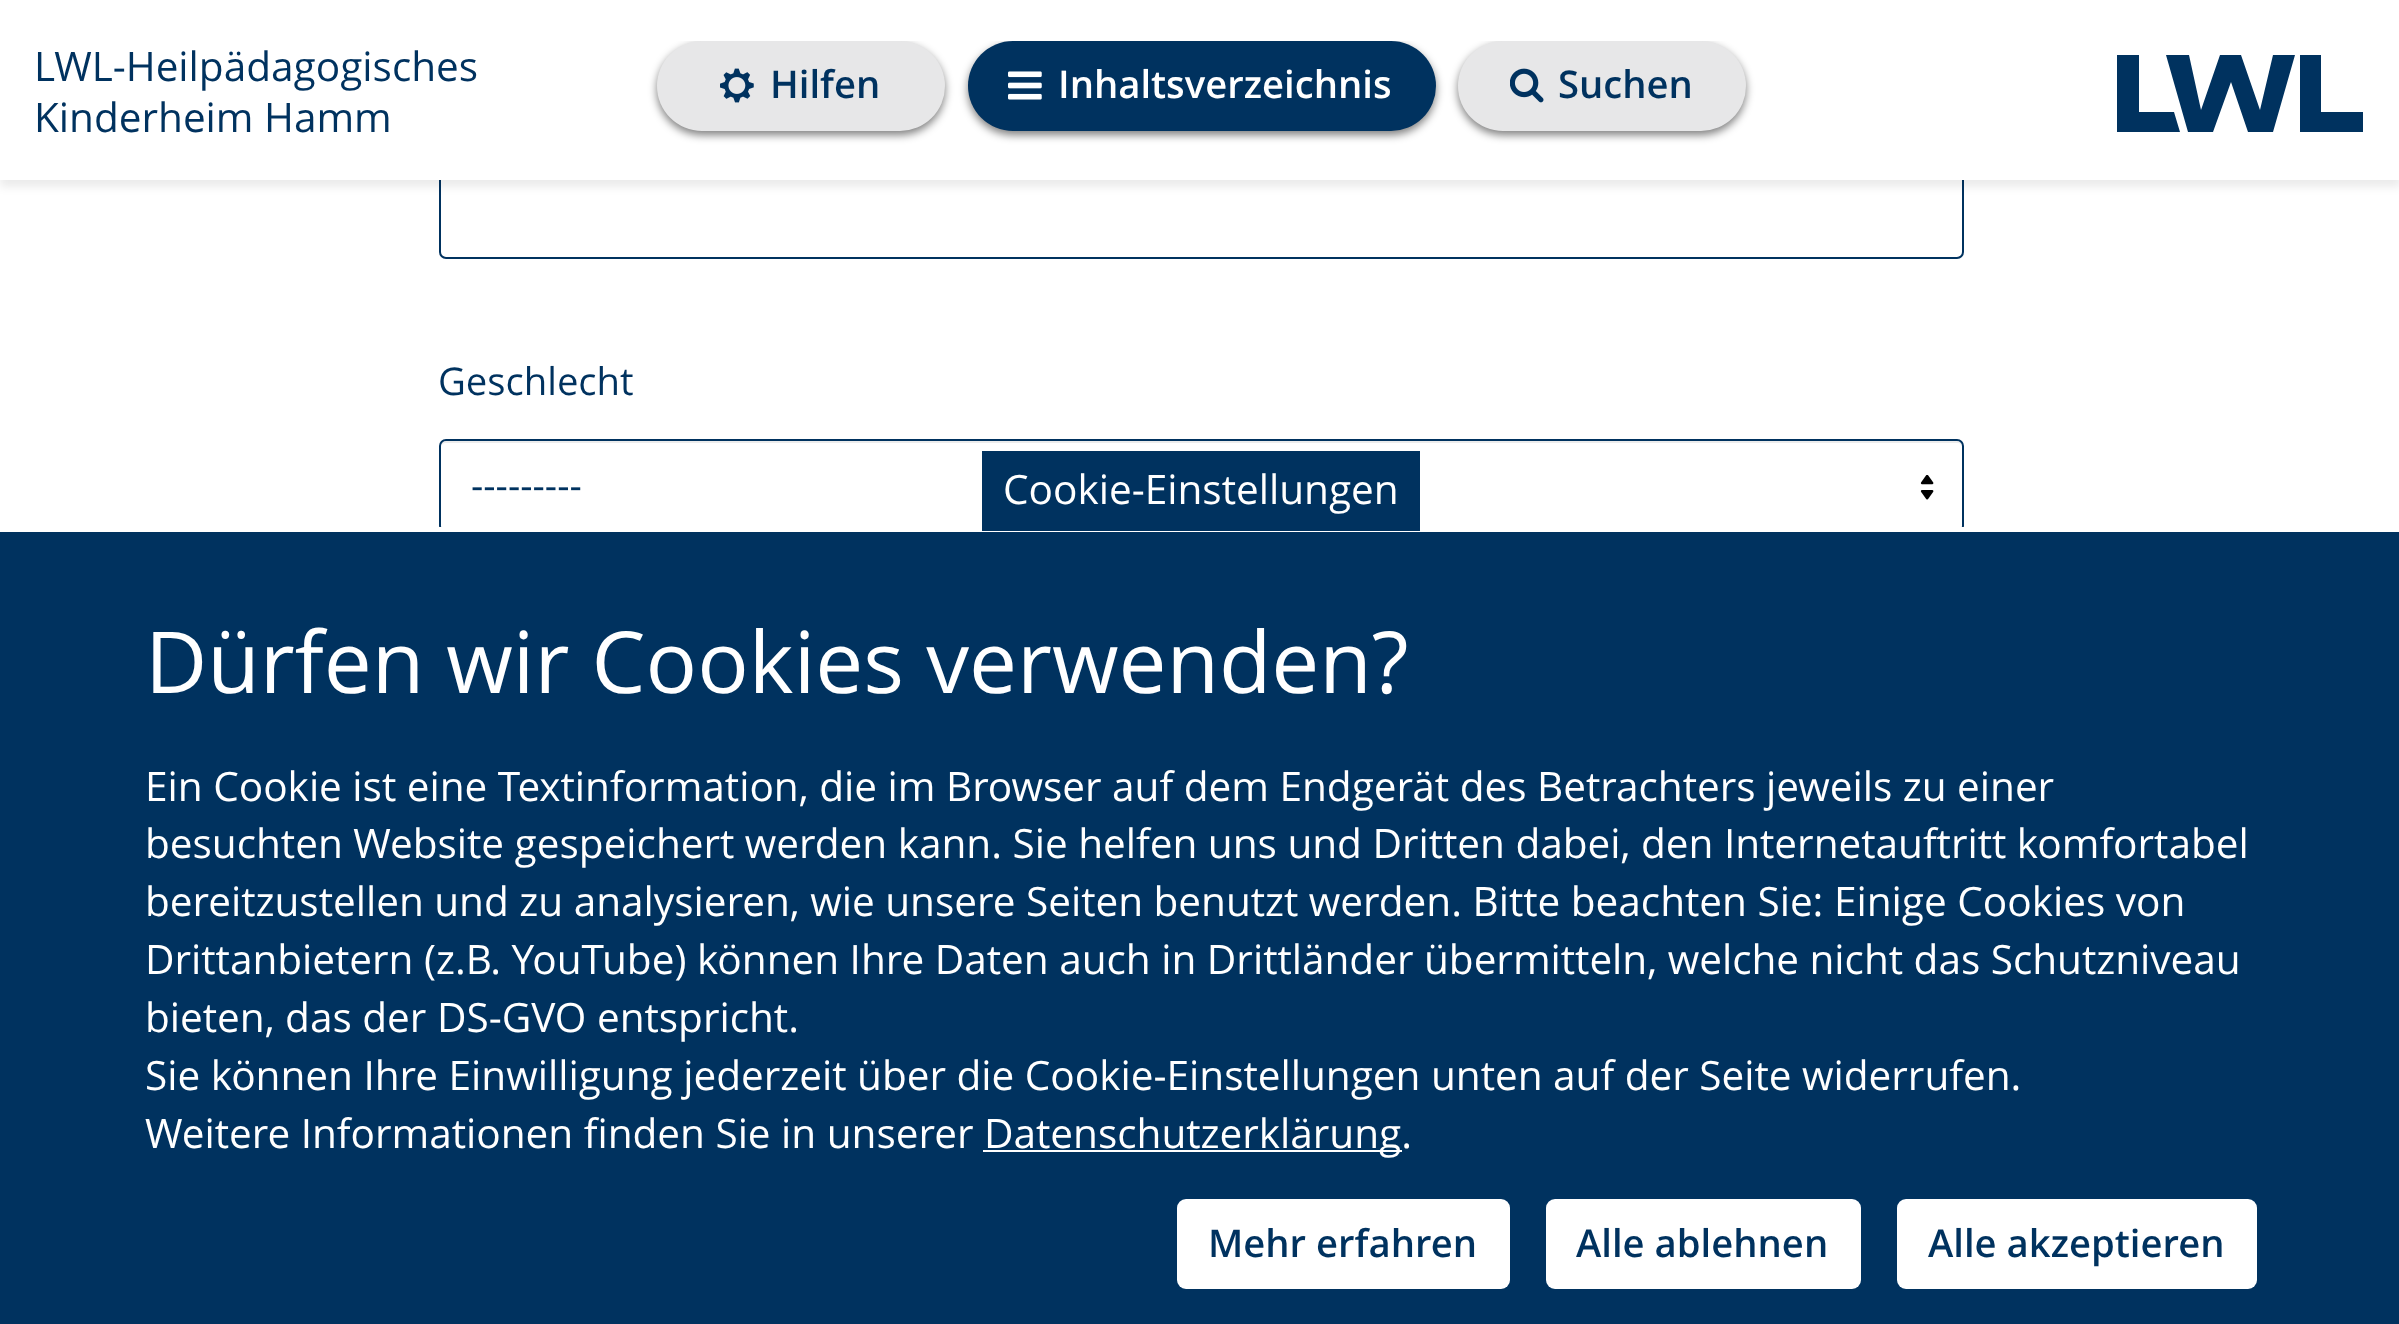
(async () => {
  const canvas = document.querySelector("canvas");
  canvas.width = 2399;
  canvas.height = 1324;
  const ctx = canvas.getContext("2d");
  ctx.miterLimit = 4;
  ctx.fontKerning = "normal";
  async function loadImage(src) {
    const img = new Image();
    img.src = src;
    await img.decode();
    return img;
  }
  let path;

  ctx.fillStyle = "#ffffff";
  ctx.fillRect(0, 0, 2399, 1324);
  ctx.beginPath();
  ctx.roundRect(440, -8, 1523, 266, 6);
  ctx.strokeStyle = "#00325f";
  ctx.lineWidth = 2;
  ctx.stroke();
  ctx.fillStyle = "rgba(0, 0, 0, 0.08)";
  ctx.filter = "blur(4.5px)";
  ctx.beginPath();
  ctx.rect(0, 7, 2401, 180);
  ctx.fill();
  ctx.filter = "none";
  ctx.fillStyle = "#ffffff";
  ctx.fillRect(0, 0, 2399, 180);
  ctx.fillStyle = "#00325f";
  path = new Path2D("M2180 132H2117V55H2139V112H2174ZM2166 55H2189L2201 110L2220 55H2241L2260 110L2273 55H2295L2273 132H2248L2231 82L2213 132H2188ZM2300 55H2321V112H2363V132H2300Z");
  ctx.fill(path);
  ctx.save();
  ctx.beginPath();
  ctx.rect(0, 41, 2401, 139);
  ctx.clip();
  ctx.fillStyle = "rgba(0, 0, 0, 0.5)";
  ctx.filter = "blur(4.5px)";
  ctx.beginPath();
  ctx.roundRect(657, 45, 288, 90, 45);
  ctx.fill();
  ctx.filter = "none";
  ctx.restore();
  ctx.fillStyle = "#e7e7e8";
  ctx.beginPath();
  ctx.roundRect(657, 41, 288, 90, 45);
  ctx.fill();
  ctx.drawImage(await loadImage("img/1.png"), 720, 68, 34, 35);
  ctx.save();
  ctx.beginPath();
  ctx.rect(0, 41, 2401, 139);
  ctx.clip();
  ctx.fillStyle = "rgba(0, 0, 0, 0.5)";
  ctx.filter = "blur(4.5px)";
  ctx.beginPath();
  ctx.roundRect(968, 45, 468, 90, 45);
  ctx.fill();
  ctx.filter = "none";
  ctx.restore();
  ctx.fillStyle = "#00325f";
  ctx.beginPath();
  ctx.roundRect(968, 41, 468, 90, 45);
  ctx.fill();
  ctx.drawImage(await loadImage("img/2.png"), 1008, 71, 34, 29);
  ctx.save();
  ctx.beginPath();
  ctx.rect(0, 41, 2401, 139);
  ctx.clip();
  ctx.fillStyle = "rgba(0, 0, 0, 0.5)";
  ctx.filter = "blur(4.5px)";
  ctx.beginPath();
  ctx.roundRect(1458, 45, 288, 90, 45);
  ctx.fill();
  ctx.filter = "none";
  ctx.restore();
  ctx.fillStyle = "#e7e7e8";
  ctx.beginPath();
  ctx.roundRect(1458, 41, 288, 90, 45);
  ctx.fill();
  ctx.drawImage(await loadImage("img/3.png"), 1510, 68, 34, 35);
  ctx.fillStyle = "#ececec";
  path = new Path2D("M446 443H1958C1960 443 1962 445 1962 448C1962 445 1961 441 1957 441H446C442 441 441 445 441 448C441 445 443 443 446 443Z");
  ctx.fill(path);
  ctx.beginPath();
  ctx.roundRect(440, 440, 1523, 92, 6);
  ctx.stroke();
  ctx.drawImage(await loadImage("img/4.png"), 1920, 475, 14, 25);
  for (const [x, y, w, h, color] of [
    [0, 532, 2399, 792, "#00325f"],
    [439, 527, 1525, 5, "#ffffff"],
    [982, 451, 438, 80, "#00325f"],
    [983, 1150, 419, 2, "#ffffff"],
  ]) {
    ctx.fillStyle = color;
    ctx.fillRect(x, y, w, h);
  }
  ctx.beginPath();
  ctx.roundRect(1177, 1199, 333, 90, 9);
  ctx.fill();
  ctx.beginPath();
  ctx.roundRect(1546, 1199, 315, 90, 9);
  ctx.fill();
  ctx.beginPath();
  ctx.roundRect(1897, 1199, 360, 90, 9);
  ctx.fill();
  ctx.font = "40.5px Open Sans";
  ctx.fillStyle = "#00325f";
  ctx.fillText("LWL-Heilpädagogisches", 34, 81);
  ctx.fillText("Kinderheim Hamm", 34, 132);
  ctx.font = "600 38.25px Open Sans";
  ctx.fillText("Hilfen", 770, 98);
  ctx.fillStyle = "#ffffff";
  ctx.fillText("Inhaltsverzeichnis", 1058, 98);
  ctx.fillStyle = "#00325f";
  ctx.fillText("Suchen", 1558, 98);
  ctx.font = "38.25px Open Sans";
  ctx.fillText("Geschlecht", 438, 395);
  ctx.fillText("---------", 471, 499);
  ctx.font = "40.5px Open Sans";
  ctx.fillStyle = "#ffffff";
  ctx.fillText("Cookie-Einstellungen", 1003, 504);
  ctx.font = "85.5px Open Sans";
  ctx.fillText("Dürfen wir Cookies verwenden?", 145, 693);
  ctx.font = "40.5px Open Sans";
  for (const [text, x, y] of [
    ["Ein Cookie ist eine Textinformation, die im Browser auf dem Endgerät des Betrachters jeweils zu einer", 145, 801],
    ["besuchten Website gespeichert werden kann. Sie helfen uns und Dritten dabei, den Internetauftritt komfortabel", 145, 858],
    ["bereitzustellen und zu analysieren, wie unsere Seiten benutzt werden. Bitte beachten Sie: Einige Cookies von", 145, 916],
    ["Drittanbietern (z.B. YouTube) können Ihre Daten auch in Drittländer übermitteln, welche nicht das Schutzniveau", 145, 974],
    ["bieten, das der DS-GVO entspricht.", 145, 1032],
    ["Sie können Ihre Einwilligung jederzeit über die Cookie-Einstellungen unten auf der Seite widerrufen.", 145, 1090],
    ["Weitere Informationen finden Sie in unserer", 145, 1148],
    ["Datenschutzerklärung.", 984, 1148],
  ]) {
    ctx.fillText(text, x, y);
  }
  ctx.font = "600 38.25px Open Sans";
  ctx.fillStyle = "#00325f";
  for (const [text, x, y] of [
    ["Mehr erfahren", 1208, 1257],
    ["Alle ablehnen", 1576, 1257],
    ["Alle akzeptieren", 1928, 1257],
  ]) {
    ctx.fillText(text, x, y);
  }
})();
